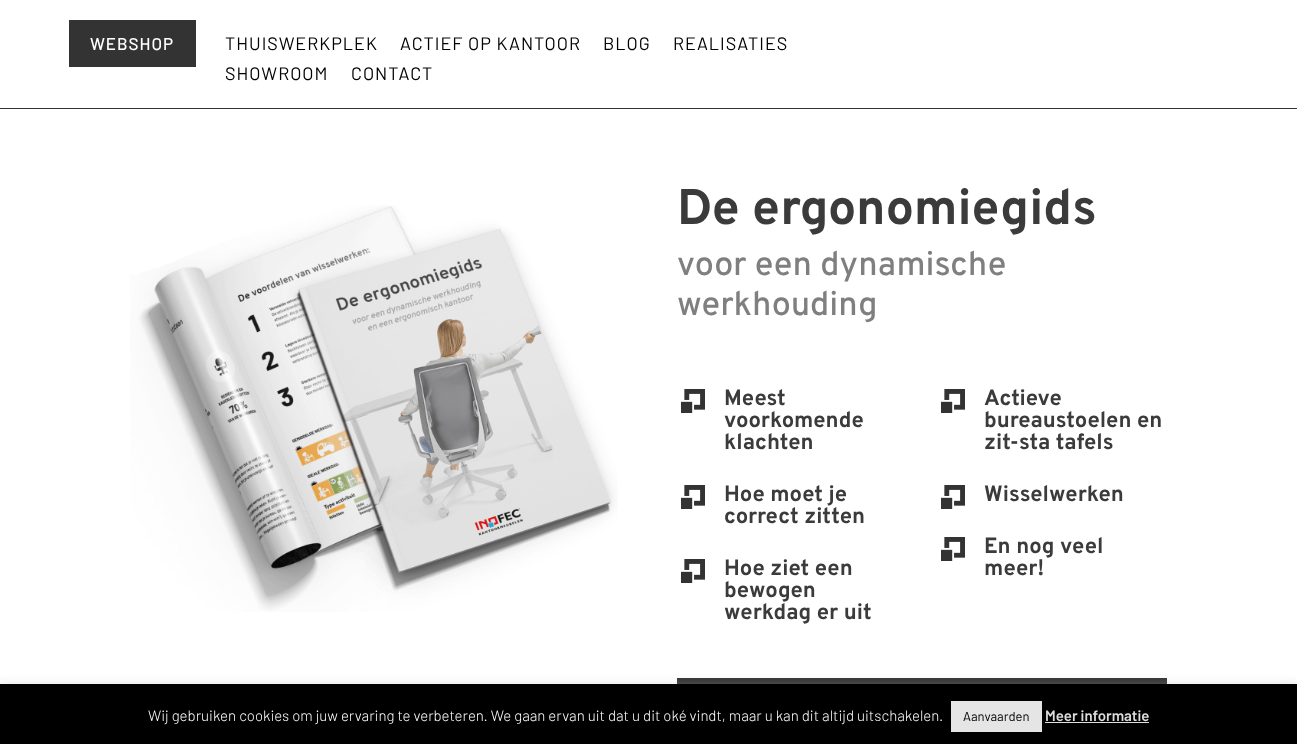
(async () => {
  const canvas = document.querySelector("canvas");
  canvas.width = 1297;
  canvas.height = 744;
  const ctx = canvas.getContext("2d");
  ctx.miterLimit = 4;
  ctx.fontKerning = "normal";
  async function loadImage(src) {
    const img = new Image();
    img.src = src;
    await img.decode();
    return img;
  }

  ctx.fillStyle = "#ffffff";
  ctx.fillRect(0, 0, 1297, 744);
  ctx.fillStyle = "#333333";
  ctx.fillRect(0, 108, 1297, 1);
  ctx.fillRect(69, 20, 127, 47);
  ctx.drawImage(await loadImage("img/1.png"), 130, 205, 488, 407);
  ctx.drawImage(await loadImage("img/2.png"), 681, 389, 24, 24);
  ctx.drawImage(await loadImage("img/2.png"), 681, 485, 24, 24);
  ctx.drawImage(await loadImage("img/2.png"), 681, 559, 24, 24);
  ctx.drawImage(await loadImage("img/2.png"), 941, 389, 24, 24);
  ctx.drawImage(await loadImage("img/2.png"), 941, 485, 24, 24);
  ctx.drawImage(await loadImage("img/3.png"), 941, 537, 24, 24);
  ctx.fillRect(677, 678, 490, 6);
  ctx.fillStyle = "rgba(172, 171, 171, 0.3)";
  ctx.filter = "blur(5px)";
  ctx.beginPath();
  ctx.rect(0, 683, 1297, 60);
  ctx.fill();
  ctx.filter = "none";
  for (const [x, y, w, h, color] of [
    [0, 684, 1297, 60, "#000000"],
    [951, 701, 91, 31, "#e5e5e5"],
    [1045, 722, 104, 1, "#dddddd"],
  ]) {
    ctx.fillStyle = color;
    ctx.fillRect(x, y, w, h);
  }
  ctx.letterSpacing = "1px";
  ctx.font = "500 17px Barlow";
  ctx.fillStyle = "#ffffff";
  ctx.fillText("WEBSHOP", 90, 50);
  ctx.font = "18px Barlow";
  ctx.fillStyle = "#000000";
  for (const [text, x, y] of [
    ["THUISWERKPLEK", 225, 50],
    ["ACTIEF OP KANTOOR", 400, 50],
    ["BLOG", 603, 50],
    ["REALISATIES", 673, 50],
    ["SHOWROOM", 225, 80],
    ["CONTACT", 351, 80],
  ]) {
    ctx.fillText(text, x, y);
  }
  ctx.letterSpacing = "0px";
  ctx.font = "bold 50px Overpass";
  ctx.fillStyle = "#3b3b3b";
  ctx.fillText("De ergonomiegids", 677, 224);
  ctx.font = "500 34px Overpass";
  ctx.fillStyle = "#7f7f7f";
  ctx.fillText("voor een dynamische", 677, 275);
  ctx.fillText("werkhouding", 677, 315);
  ctx.font = "bold 22px Overpass";
  ctx.fillStyle = "#3b3b3b";
  for (const [text, x, y] of [
    ["Meest", 724, 405],
    ["voorkomende", 724, 427],
    ["klachten", 724, 449],
    ["Hoe moet je", 724, 501],
    ["correct zitten", 724, 523],
    ["Hoe ziet een", 724, 575],
    ["bewogen", 724, 597],
    ["werkdag er uit", 724, 619],
    ["Actieve", 984, 405],
    ["bureaustoelen en", 984, 427],
    ["zit-sta tafels", 984, 449],
    ["Wisselwerken", 984, 501],
    ["En nog veel", 984, 553],
    ["meer!", 984, 575],
  ]) {
    ctx.fillText(text, x, y);
  }
  ctx.font = "300 15px Barlow";
  ctx.fillStyle = "#ffffff";
  ctx.fillText("Wij gebruiken cookies om juw ervaring te verbeteren. We gaan ervan uit dat u dit oké vindt, maar u kan dit altijd uitschakelen.", 148, 721);
  ctx.font = "13px Barlow";
  ctx.fillStyle = "#000000";
  ctx.fillText("Aanvaarden", 963, 721);
  ctx.font = "600 15px Barlow";
  ctx.fillStyle = "#dddddd";
  ctx.fillText("Meer informatie", 1045, 721);
})();
